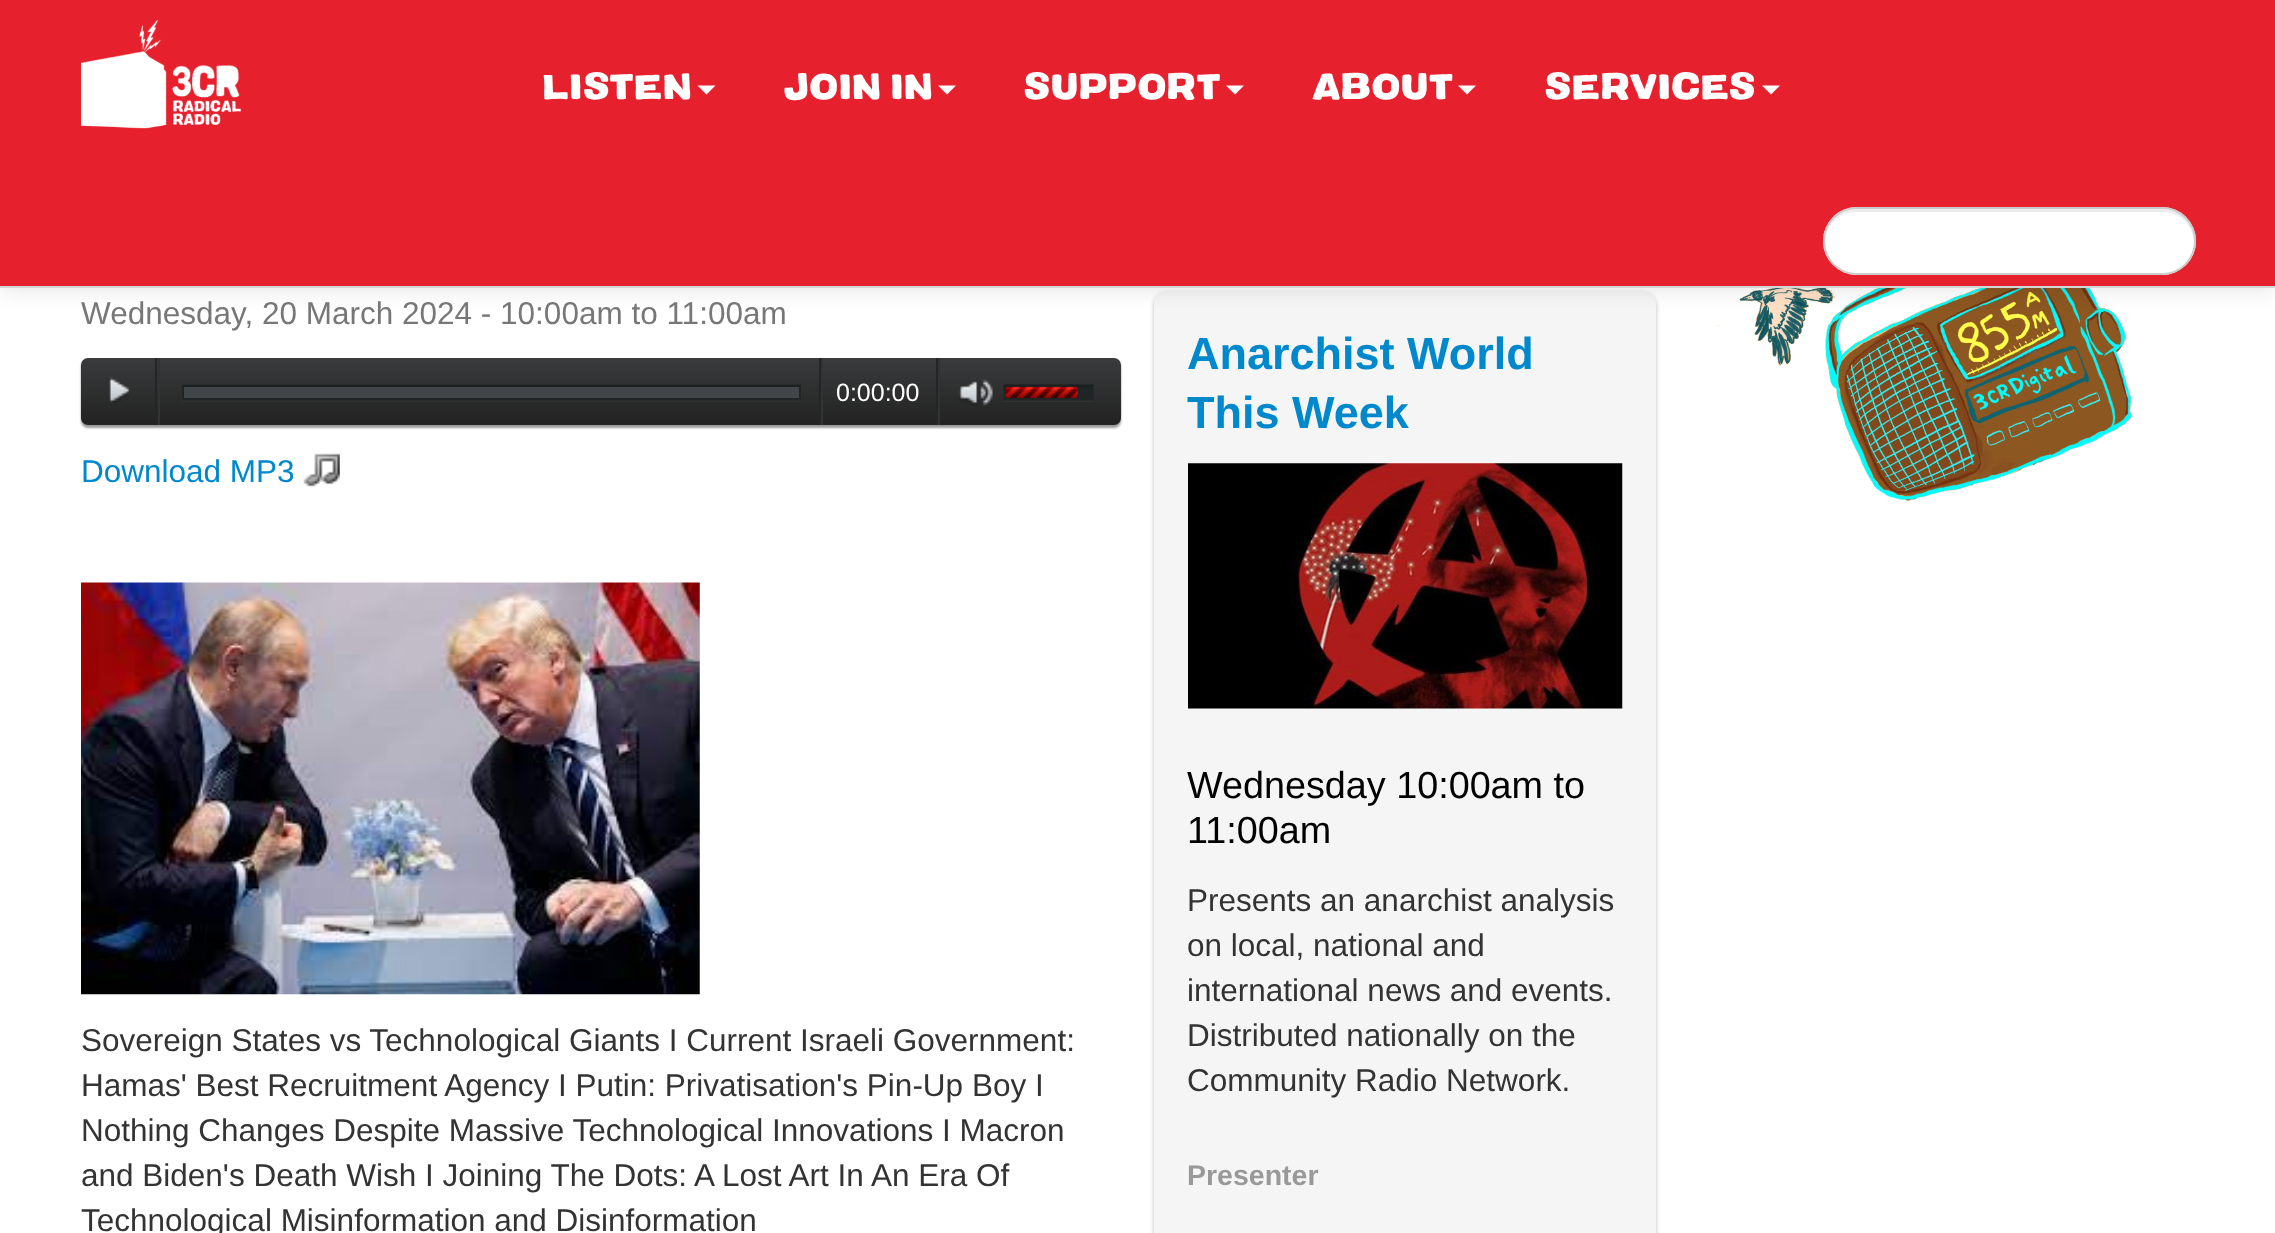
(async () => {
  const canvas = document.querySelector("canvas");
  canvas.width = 2275;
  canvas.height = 1233;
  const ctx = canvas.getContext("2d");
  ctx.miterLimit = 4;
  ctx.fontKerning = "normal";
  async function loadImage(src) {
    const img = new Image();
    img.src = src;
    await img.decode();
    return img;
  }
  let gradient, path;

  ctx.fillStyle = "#ffffff";
  ctx.fillRect(0, 0, 2275, 1233);
  ctx.fillStyle = "#bbbbbb";
  ctx.filter = "blur(2px)";
  ctx.beginPath();
  ctx.roundRect(1154, 293, 502, 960, 14);
  ctx.fill();
  ctx.filter = "none";
  ctx.fillStyle = "#f5f5f5";
  ctx.beginPath();
  ctx.roundRect(1154, 290, 502, 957, 14);
  ctx.fill();
  ctx.drawImage(await loadImage("img/10.png"), 1717, 288, 415, 213);
  ctx.fillStyle = "rgba(0, 0, 0, 0.1)";
  ctx.filter = "blur(11px)";
  ctx.beginPath();
  ctx.rect(0, 2, 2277, 288);
  ctx.fill();
  ctx.filter = "none";
  ctx.fillStyle = "#e7202e";
  ctx.fillRect(0, 0, 2275, 286);
  ctx.fillStyle = "#d4d4d4";
  ctx.fillRect(0, 286, 2275, 2);
  ctx.drawImage(await loadImage("img/1.png"), 81, 20, 160, 109);
  ctx.fillStyle = "#ffffff";
  path = new Path2D("M697.5 85.5H715.5L706.5 94.5Z");
  ctx.fill(path);
  path = new Path2D("M938 85.5H956L947 94.5Z");
  ctx.fill(path);
  path = new Path2D("M1226 85.5H1244L1235 94.5Z");
  ctx.fill(path);
  path = new Path2D("M1458 85.5H1476L1467 94.5Z");
  ctx.fill(path);
  path = new Path2D("M1762 85.5H1780L1771 94.5Z");
  ctx.fill(path);
  ctx.beginPath();
  ctx.roundRect(1823, 207, 373, 68, 34);
  ctx.fill();
  ctx.fillStyle = "#ececec";
  path = new Path2D("M1856 212H2162C2180 212 2193 225 2194 242V240C2194 223 2180 209 2162 209H1856C1839 209 1825 223 1825 240V242C1826 225 1839 212 1856 212Z");
  ctx.fill(path);
  ctx.beginPath();
  ctx.roundRect(1824, 208, 371, 66, 33);
  ctx.strokeStyle = "#cccccc";
  ctx.lineWidth = 2;
  ctx.stroke();
  ctx.fillStyle = "rgba(0, 0, 0, 0.4)";
  ctx.filter = "blur(1px)";
  ctx.beginPath();
  ctx.roundRect(81, 360, 1040, 68, 7);
  ctx.fill();
  ctx.filter = "none";
  gradient = ctx.createLinearGradient(81, 425, 81, 358);
  gradient.addColorStop(0, "#222222");
  gradient.addColorStop(1, "#3a3b3c");
  ctx.fillStyle = gradient;
  ctx.beginPath();
  ctx.roundRect(81, 358, 1040, 67, 7);
  ctx.fill();
  ctx.drawImage(await loadImage("img/2.png"), 109, 377, 22, 26);
  ctx.fillStyle = "#242526";
  ctx.fillRect(155, 358, 2, 67);
  ctx.drawImage(await loadImage("img/3.png"), 958, 379, 35, 27);
  ctx.fillRect(819, 358, 2, 67);
  ctx.fillStyle = "#323334";
  ctx.fillRect(158, 358, 2, 67);
  ctx.drawImage(await loadImage("img/4.png"), 182, 384, 619, 18);
  for (const [x, y, w, h, color] of [
    [184, 387, 615, 11, "#434648"],
    [936, 358, 2, 67, "#242526"],
    [821, 358, 2, 67, "#323334"],
    [938, 358, 2, 67, "#323334"],
  ]) {
    ctx.fillStyle = color;
    ctx.fillRect(x, y, w, h);
  }
  ctx.drawImage(await loadImage("img/5.png"), 1003, 384, 91, 18);
  ctx.drawImage(await loadImage("img/6.png"), 1005, 386, 73, 12);
  ctx.drawImage(await loadImage("img/7.png"), 303, 453, 37, 34);
  ctx.drawImage(await loadImage("img/8.png"), 81, 582, 619, 413);
  ctx.drawImage(await loadImage("img/9.png"), 1188, 463, 435, 246);
  ctx.font = "34.5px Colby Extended";
  ctx.fillStyle = "#ffffff";
  for (const [text, x, y] of [
    ["LISTEN", 542, 99],
    ["JOIN IN", 783, 99],
    ["SUPPORT", 1023, 99],
    ["ABOUT", 1312, 99],
    ["SERVICES", 1544, 99],
  ]) {
    ctx.fillText(text, x, y);
  }
  ctx.font = "31.5px Liberation Sans";
  ctx.fillStyle = "#777777";
  ctx.fillText("Wednesday, 20 March 2024 - 10:00am to 11:00am", 81, 324);
  ctx.font = "25px Liberation Sans";
  ctx.fillStyle = "#ffffff";
  ctx.fillText("0:00:00", 836, 401);
  ctx.font = "31.5px Liberation Sans";
  ctx.fillStyle = "#0088cc";
  ctx.fillText("Download MP3", 81, 482);
  ctx.fillStyle = "#333333";
  for (const [text, x, y] of [
    ["Sovereign States vs Technological Giants I Current Israeli Government:", 81, 1051],
    ["Hamas' Best Recruitment Agency I Putin: Privatisation's Pin-Up Boy I", 81, 1096],
    ["Nothing Changes Despite Massive Technological Innovations I Macron", 81, 1141],
    ["and Biden's Death Wish I Joining The Dots: A Lost Art In An Era Of", 81, 1186],
    ["Technological Misinformation and Disinformation", 81, 1231],
  ]) {
    ctx.fillText(text, x, y);
  }
  ctx.font = "bold 45px Liberation Sans";
  ctx.fillStyle = "#0088cc";
  ctx.fillText("Anarchist World", 1187, 369);
  ctx.fillText("This Week", 1187, 428);
  ctx.font = "37.75px Liberation Sans";
  ctx.fillStyle = "#000000";
  ctx.fillText("Wednesday 10:00am to", 1187, 798);
  ctx.fillText("11:00am", 1187, 843);
  ctx.font = "31.5px Liberation Sans";
  ctx.fillStyle = "#333333";
  for (const [text, x, y] of [
    ["Presents an anarchist analysis", 1187, 911],
    ["on local, national and", 1187, 956],
    ["international news and events.", 1187, 1001],
    ["Distributed nationally on the", 1187, 1046],
    ["Community Radio Network.", 1187, 1091],
  ]) {
    ctx.fillText(text, x, y);
  }
  ctx.font = "bold 28.5px Liberation Sans";
  ctx.fillStyle = "#999999";
  ctx.fillText("Presenter", 1187, 1185);
})();
